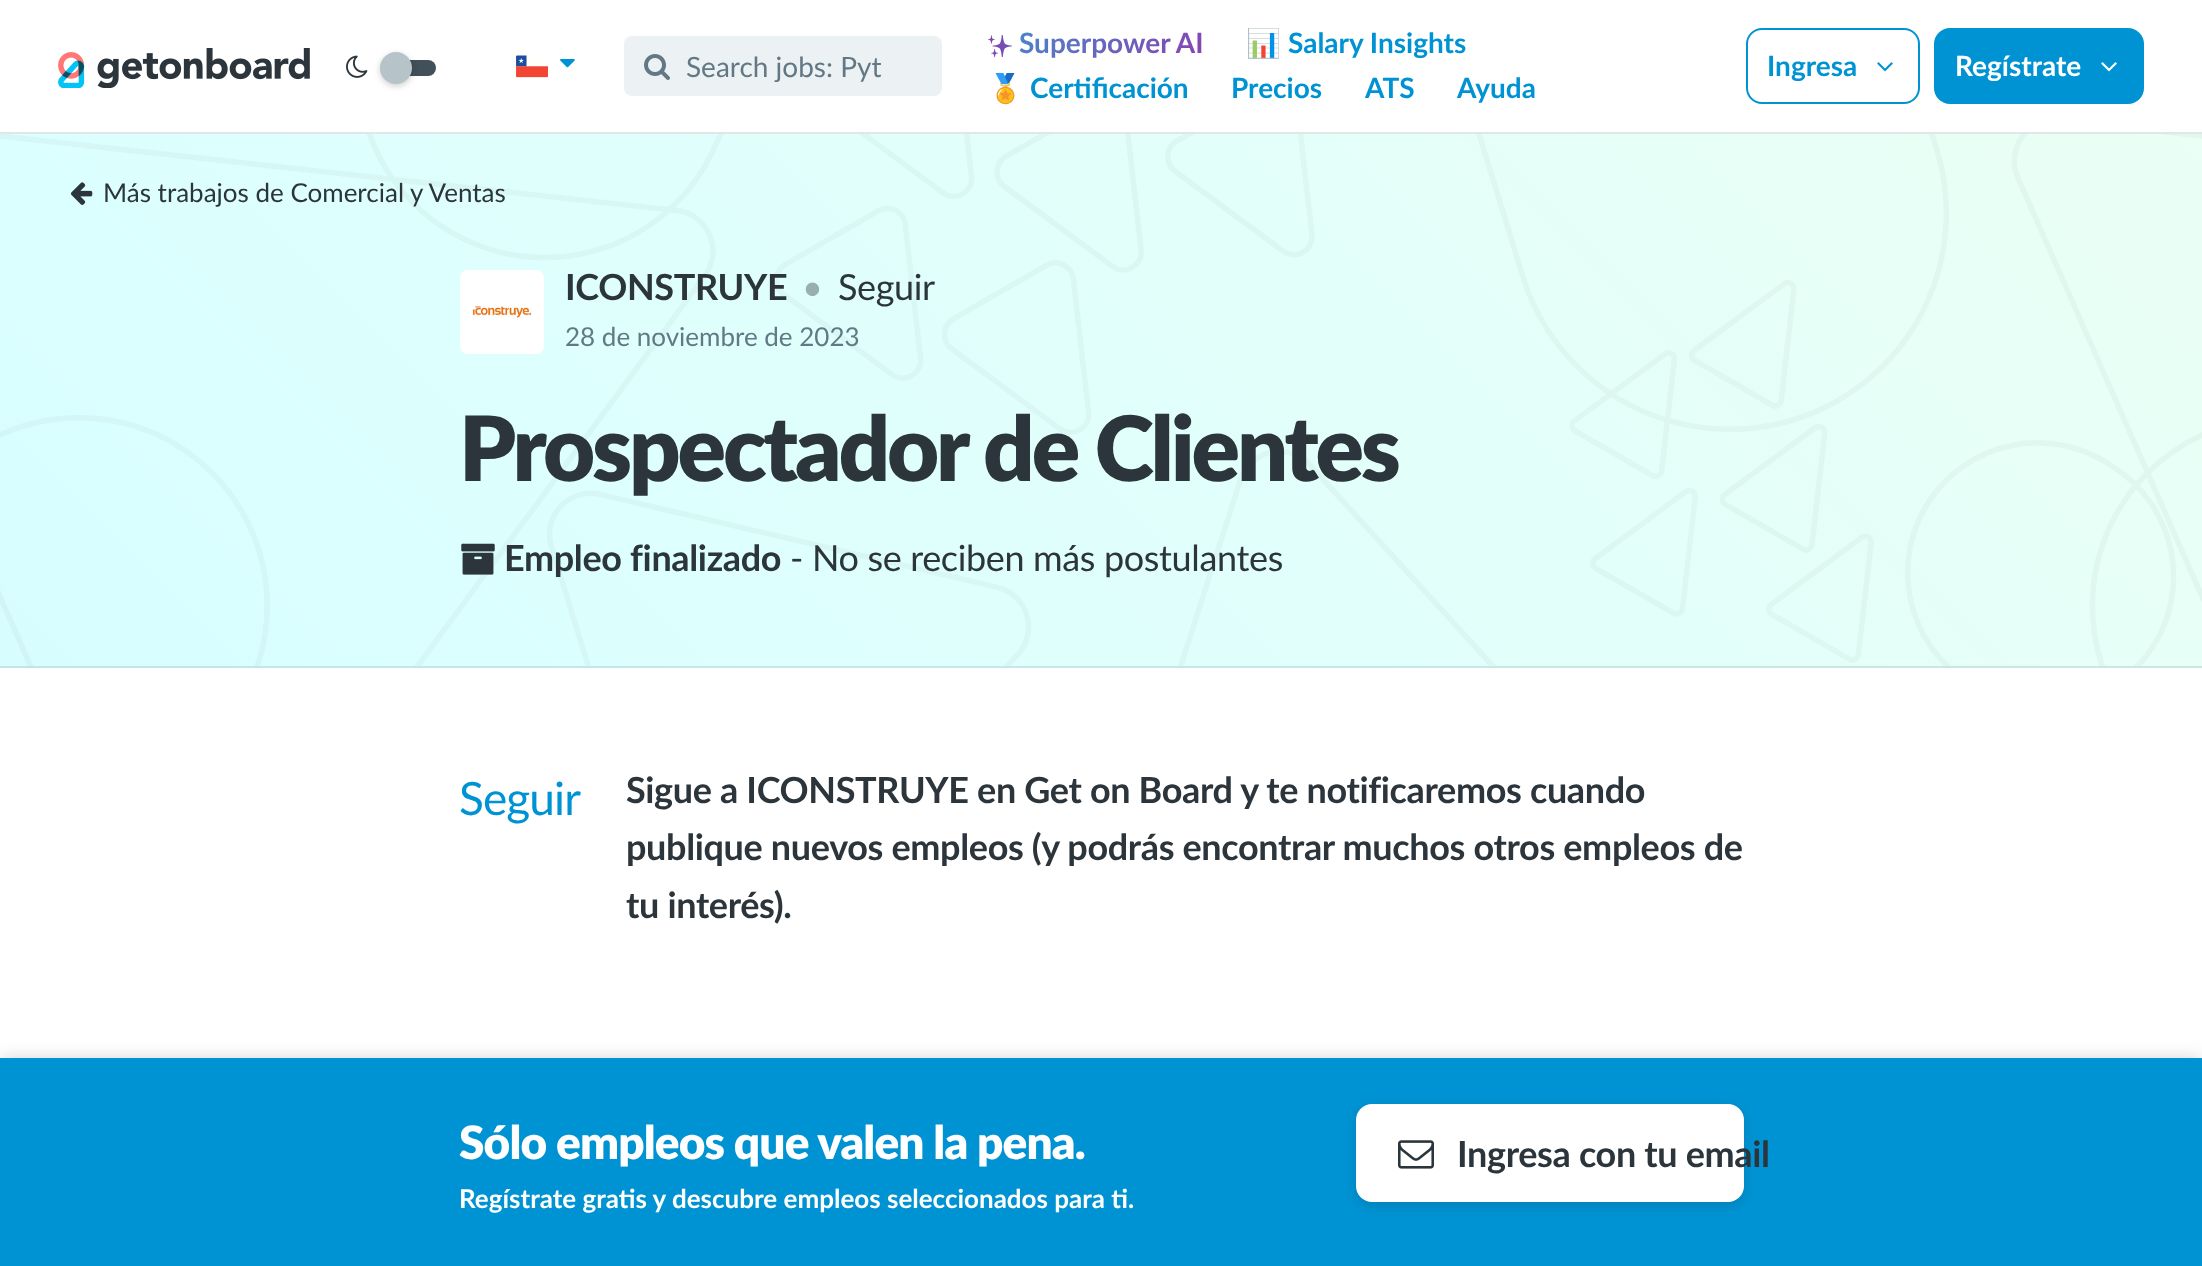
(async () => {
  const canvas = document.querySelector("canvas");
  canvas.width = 2202;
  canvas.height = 1266;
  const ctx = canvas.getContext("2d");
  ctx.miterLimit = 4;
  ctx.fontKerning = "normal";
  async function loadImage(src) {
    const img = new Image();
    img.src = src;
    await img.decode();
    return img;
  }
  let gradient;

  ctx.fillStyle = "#ffffff";
  ctx.fillRect(0, 0, 2202, 1266);
  ctx.fillStyle = "#e1e6e7";
  ctx.fillRect(0, 132, 2202, 2);
  ctx.drawImage(await loadImage("img/1.png"), 58, 48, 252, 40);
  ctx.drawImage(await loadImage("img/2.png"), 346, 55, 22, 23);
  ctx.fillStyle = "#415059";
  ctx.beginPath();
  ctx.roundRect(396, 60, 40, 16, 8);
  ctx.fill();
  ctx.fillStyle = "rgba(0, 0, 0, 0.2)";
  ctx.filter = "blur(3px)";
  ctx.beginPath();
  ctx.roundRect(380, 54, 32, 32, 16);
  ctx.fill();
  ctx.filter = "none";
  ctx.fillStyle = "#b6c3c9";
  ctx.beginPath();
  ctx.arc(396, 68, 16, 0, Math.PI * 2);
  ctx.fill();
  ctx.drawImage(await loadImage("img/3.png"), 516, 55, 32, 23);
  ctx.drawImage(await loadImage("img/4.png"), 560, 59, 15, 9);
  ctx.fillStyle = "#ecf1f4";
  ctx.beginPath();
  ctx.roundRect(624, 36, 318, 60, 8);
  ctx.fill();
  ctx.drawImage(await loadImage("img/5.png"), 644, 54, 26, 26);
  ctx.drawImage(await loadImage("img/6.png"), 988, 35, 24, 23);
  ctx.beginPath();
  ctx.roundRect(1747, 29, 172, 74, 15);
  ctx.strokeStyle = "#0093d3";
  ctx.lineWidth = 2;
  ctx.stroke();
  ctx.drawImage(await loadImage("img/7.png"), 1877, 62, 16, 10);
  ctx.fillStyle = "#0093d3";
  ctx.beginPath();
  ctx.roundRect(1934, 28, 210, 76, 16);
  ctx.fill();
  ctx.drawImage(await loadImage("img/8.png"), 2101, 62, 16, 10);
  gradient = ctx.createLinearGradient(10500, -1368, 1500, 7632);
  gradient.addColorStop(0, "#dbffff");
  gradient.addColorStop(0.17, "#c0f3ff");
  gradient.addColorStop(0.33, "#e5d9ff");
  gradient.addColorStop(0.5, "#effff1");
  gradient.addColorStop(0.67, "#dbffff");
  gradient.addColorStop(0.83, "#c0f3ff");
  gradient.addColorStop(1, "#e5d9ff");
  ctx.fillStyle = gradient;
  ctx.fillRect(0, 134, 2202, 532);
  gradient = ctx.createLinearGradient(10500, -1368, 1500, 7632);
  gradient.addColorStop(0, "#c6e6e7");
  gradient.addColorStop(0.17, "#b2dde7");
  gradient.addColorStop(0.33, "#cec9e7");
  gradient.addColorStop(0.5, "#d5e6dd");
  gradient.addColorStop(0.67, "#c6e6e7");
  gradient.addColorStop(0.83, "#b2dde7");
  gradient.addColorStop(1, "#cec9e7");
  ctx.fillStyle = gradient;
  ctx.fillRect(0, 666, 2202, 2);
  ctx.drawImage(await loadImage("img/9.png"), 0, 134, 2202, 532);
  ctx.drawImage(await loadImage("img/10.png"), 70, 182, 23, 23);
  ctx.fillStyle = "#ffffff";
  ctx.beginPath();
  ctx.roundRect(460, 270, 84, 84, 8);
  ctx.fill();
  ctx.beginPath();
  ctx.roundRect(461, 271, 82, 82, 7);
  ctx.strokeStyle = "rgba(255, 255, 255, 0.5)";
  ctx.stroke();
  ctx.drawImage(await loadImage("img/11.png"), 472, 306, 60, 12);
  ctx.drawImage(await loadImage("img/12.png"), 461, 543, 34, 32);
  ctx.fillStyle = "rgba(0, 0, 0, 0.25)";
  ctx.filter = "blur(10px)";
  ctx.beginPath();
  ctx.rect(0, 1062, 2202, 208);
  ctx.fill();
  ctx.filter = "none";
  ctx.fillStyle = "#0093d3";
  ctx.fillRect(0, 1058, 2202, 208);
  ctx.fillStyle = "rgba(0, 0, 0, 0.12)";
  ctx.filter = "blur(6px)";
  ctx.beginPath();
  ctx.roundRect(1356, 1108, 388, 98, 16);
  ctx.fill();
  ctx.filter = "none";
  ctx.fillStyle = "#ffffff";
  ctx.beginPath();
  ctx.roundRect(1356, 1104, 388, 98, 16);
  ctx.fill();
  ctx.drawImage(await loadImage("img/13.png"), 1398, 1140, 36, 29);
  ctx.font = "28px Lato";
  ctx.fillStyle = "#627884";
  ctx.fillText("Search jobs: Pyt", 686, 77);
  ctx.font = "bold 28px Lato";
  gradient = ctx.createLinearGradient(1033, -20, 1158, 105);
  gradient.addColorStop(0, "#4091cd");
  gradient.addColorStop(1, "#8842b2");
  ctx.fillStyle = gradient;
  ctx.fillText("Superpower AI", 1019, 53);
  ctx.font = "bold 28px Noto Color Emoji";
  ctx.fillStyle = "#0093d3";
  ctx.fillText("📊", 1246, 53);
  ctx.font = "bold 28px Lato";
  ctx.fillText("Salary Insights", 1288, 53);
  ctx.font = "bold 28px Noto Color Emoji";
  ctx.fillText("🏅", 988, 98);
  ctx.font = "bold 28px Lato";
  for (const [text, x, y] of [
    ["Certificación", 1030, 98],
    ["Precios", 1231, 98],
    ["ATS", 1365, 98],
    ["Ayuda", 1457, 98],
    ["Ingresa", 1767, 76],
  ]) {
    ctx.fillText(text, x, y);
  }
  ctx.fillStyle = "#ffffff";
  ctx.fillText("Regístrate", 1955, 76);
  ctx.font = "26px Lato";
  ctx.fillStyle = "#2b353b";
  ctx.fillText("Más trabajos de Comercial y Ventas", 103, 202);
  ctx.letterSpacing = "-0.35px";
  ctx.font = "bold 36px Lato";
  ctx.fillText("ICONSTRUYE", 565, 300);
  ctx.font = "36px Lato";
  ctx.fillStyle = "#98aeaf";
  ctx.fillText("•", 802, 300);
  ctx.fillStyle = "#2b353b";
  ctx.fillText("Seguir", 838, 300);
  ctx.letterSpacing = "0px";
  ctx.font = "26px Lato";
  ctx.fillStyle = "#627884";
  ctx.fillText("28 de noviembre de 2023", 565, 346);
  ctx.letterSpacing = "-3.15px";
  ctx.font = "900 90px Lato";
  ctx.fillStyle = "#2b353b";
  ctx.fillText("Prospectador de Clientes", 459, 481);
  ctx.letterSpacing = "-0.35px";
  ctx.font = "bold 36px Lato";
  ctx.fillText("Empleo finalizado", 504, 571);
  ctx.font = "36px Lato";
  ctx.fillText("- No se reciben más postulantes", 790, 571);
  ctx.letterSpacing = "-0.9px";
  ctx.font = "46px Lato";
  ctx.fillStyle = "#0093d3";
  ctx.fillText("Seguir", 459, 815);
  ctx.letterSpacing = "-0.35px";
  ctx.font = "bold 36px Lato";
  ctx.fillStyle = "#2b353b";
  for (const [text, x, y] of [
    ["Sigue a ICONSTRUYE en Get on Board y te notificaremos cuando", 626, 803],
    ["publique nuevos empleos (y podrás encontrar muchos otros empleos de", 626, 860],
    ["tu interés).", 626, 918],
  ]) {
    ctx.fillText(text, x, y);
  }
  ctx.letterSpacing = "-0.9px";
  ctx.font = "900 46px Lato";
  ctx.fillStyle = "#ffffff";
  ctx.fillText("Sólo empleos que valen la pena.", 459, 1159);
  ctx.letterSpacing = "0px";
  ctx.font = "bold 26px Lato";
  ctx.fillText("Regístrate gratis y descubre empleos seleccionados para ti.", 459, 1208);
  ctx.letterSpacing = "-0.35px";
  ctx.font = "bold 36px Lato";
  ctx.fillStyle = "#2b353b";
  ctx.fillText("Ingresa con tu email", 1457, 1167);
})();
